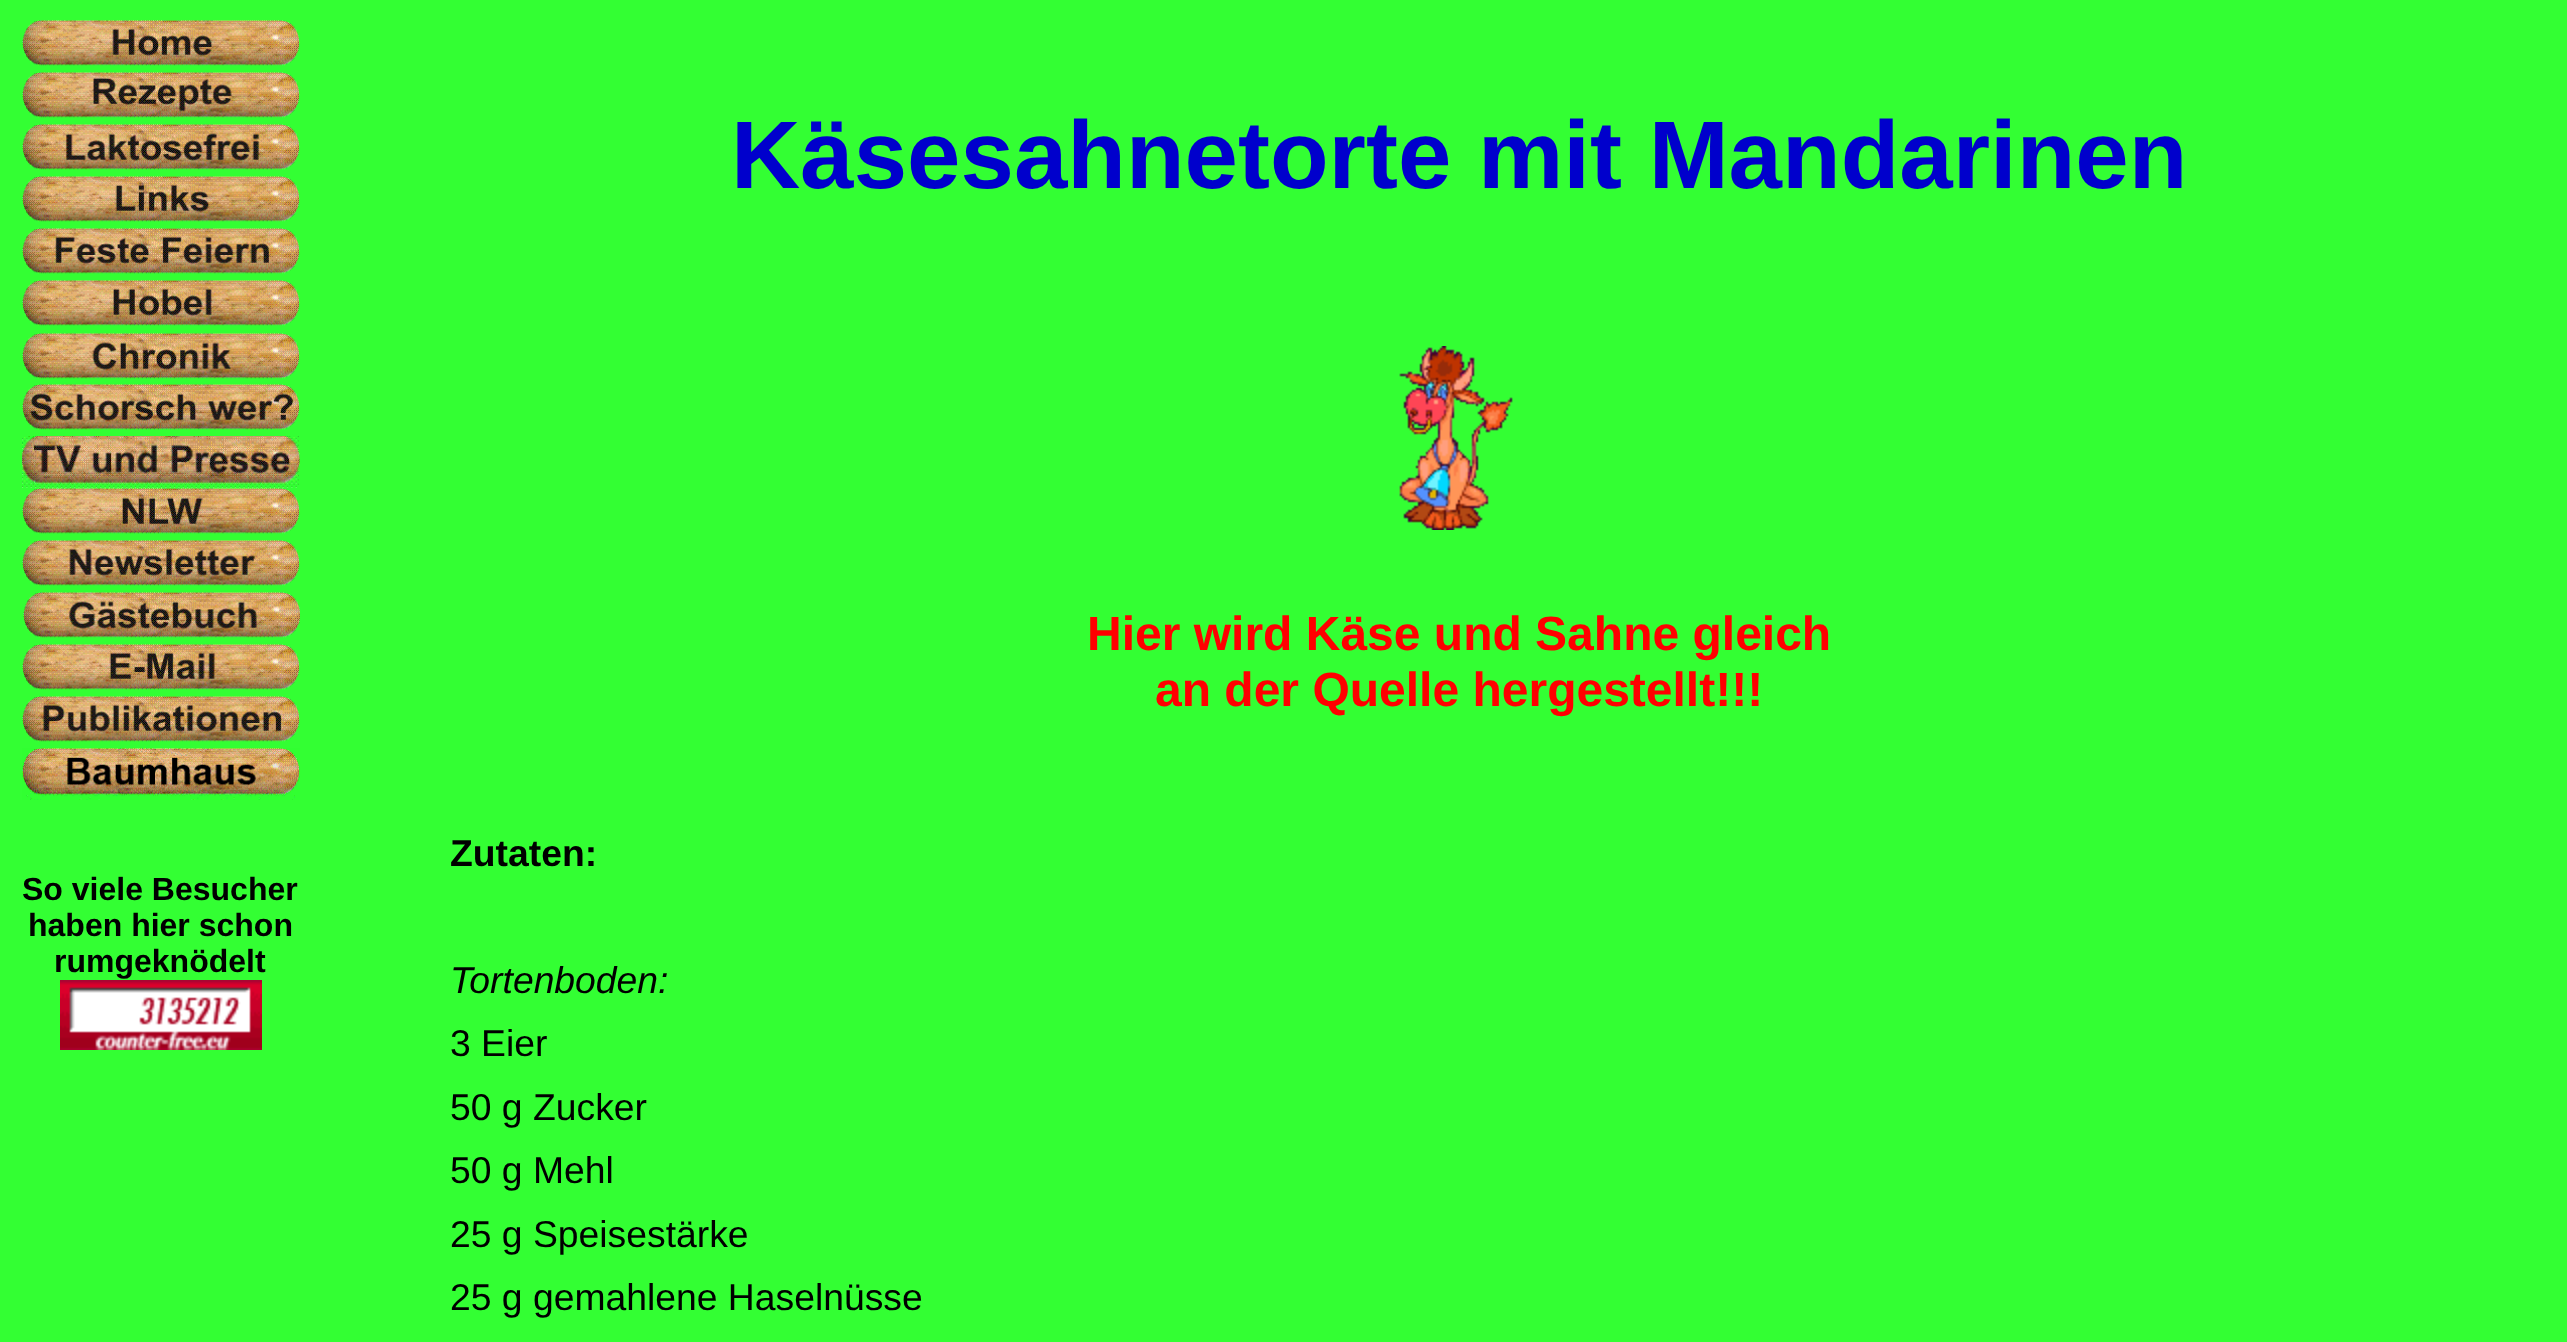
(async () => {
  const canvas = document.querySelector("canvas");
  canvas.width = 2567;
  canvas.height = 1342;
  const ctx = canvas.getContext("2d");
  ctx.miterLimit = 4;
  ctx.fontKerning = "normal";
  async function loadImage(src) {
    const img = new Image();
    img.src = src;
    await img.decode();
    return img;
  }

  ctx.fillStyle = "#33ff33";
  ctx.fillRect(0, 0, 2567, 1342);
  ctx.drawImage(await loadImage("img/1.png"), 22, 20, 278, 46);
  ctx.drawImage(await loadImage("img/2.png"), 22, 72, 278, 46);
  ctx.drawImage(await loadImage("img/3.png"), 22, 124, 278, 46);
  ctx.drawImage(await loadImage("img/4.png"), 22, 176, 278, 46);
  ctx.drawImage(await loadImage("img/5.png"), 22, 228, 278, 46);
  ctx.drawImage(await loadImage("img/6.png"), 22, 280, 278, 46);
  ctx.drawImage(await loadImage("img/7.png"), 22, 333, 278, 46);
  ctx.drawImage(await loadImage("img/8.png"), 22, 384, 278, 46);
  ctx.drawImage(await loadImage("img/9.png"), 22, 436, 278, 52);
  ctx.drawImage(await loadImage("img/10.png"), 22, 488, 278, 46);
  ctx.drawImage(await loadImage("img/11.png"), 22, 540, 278, 46);
  ctx.drawImage(await loadImage("img/12.png"), 23, 592, 277, 46);
  ctx.drawImage(await loadImage("img/13.png"), 22, 644, 278, 46);
  ctx.drawImage(await loadImage("img/14.png"), 22, 696, 278, 46);
  ctx.drawImage(await loadImage("img/15.png"), 22, 748, 278, 52);
  ctx.drawImage(await loadImage("img/16.png"), 60, 980, 202, 70);
  ctx.drawImage(await loadImage("img/17.png"), 1399, 346, 114, 184);
  ctx.font = "bold 32px Liberation Sans";
  ctx.fillStyle = "#000000";
  for (const [text, x, y] of [
    ["So viele Besucher", 22, 900],
    ["haben hier schon", 28, 936],
    ["rumgeknödelt", 54, 972],
  ]) {
    ctx.fillText(text, x, y);
  }
  ctx.font = "bold 96px Liberation Sans";
  ctx.fillStyle = "#0000cc";
  ctx.fillText("Käsesahnetorte mit Mandarinen", 731, 188);
  ctx.font = "bold 48px Liberation Sans";
  ctx.fillStyle = "#ff0000";
  ctx.fillText("Hier wird Käse und Sahne gleich", 1087, 650);
  ctx.fillText("an der Quelle hergestellt!!!", 1155, 706);
  ctx.font = "bold 37.3px Liberation Sans";
  ctx.fillStyle = "#000000";
  ctx.fillText("Zutaten:", 450, 866);
  ctx.font = "italic 37.3px Liberation Sans";
  ctx.fillText("Tortenboden:", 450, 993);
  ctx.font = "37.3px Liberation Sans";
  for (const [text, x, y] of [
    ["3 Eier", 450, 1056],
    ["50 g Zucker", 450, 1120],
    ["50 g Mehl", 450, 1183],
    ["25 g Speisestärke", 450, 1247],
    ["25 g gemahlene Haselnüsse", 450, 1310],
  ]) {
    ctx.fillText(text, x, y);
  }
})();
